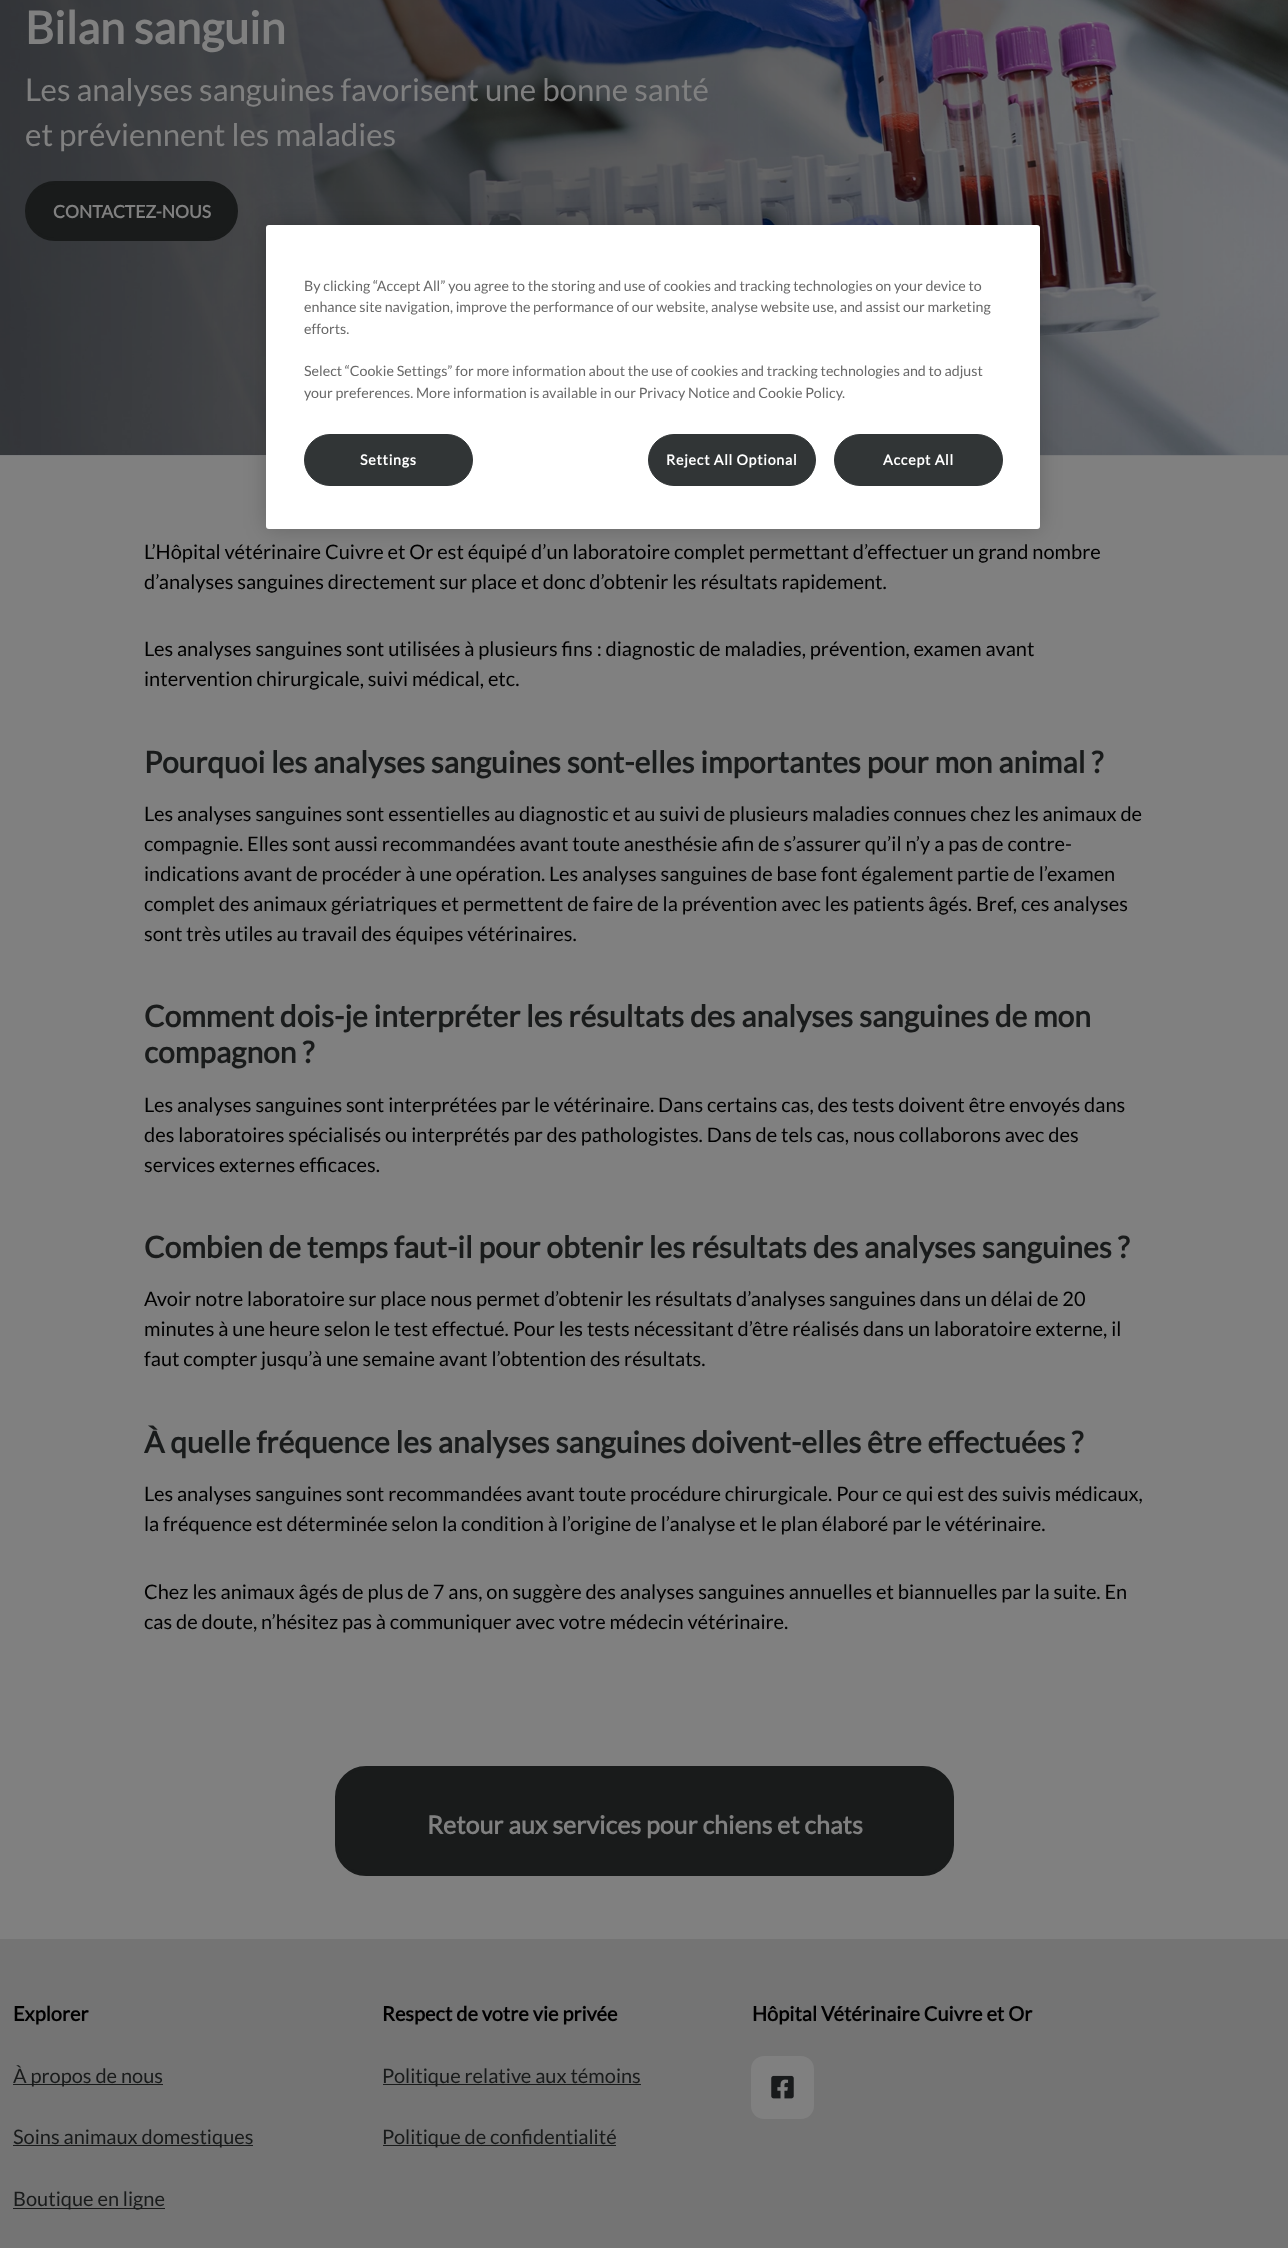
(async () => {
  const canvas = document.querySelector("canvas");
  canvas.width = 1288;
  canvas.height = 2248;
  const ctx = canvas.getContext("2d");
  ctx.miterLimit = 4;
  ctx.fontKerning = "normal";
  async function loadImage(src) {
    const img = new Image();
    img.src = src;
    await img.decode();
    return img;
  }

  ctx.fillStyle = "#808080";
  ctx.fillRect(0, 0, 1288, 2248);
  ctx.drawImage(await loadImage("img/1.png"), 0, 0, 1288, 456);
  ctx.fillStyle = "#191b1b";
  ctx.beginPath();
  ctx.roundRect(26.5, 182.5, 210, 57, 28.5);
  ctx.fill();
  ctx.strokeStyle = "#191b1b";
  ctx.lineWidth = 3;
  ctx.stroke();
  ctx.beginPath();
  ctx.roundRect(336.5, 1767.5, 616, 107, 29.5);
  ctx.fill();
  ctx.stroke();
  for (const [x, y, w, h, color] of [
    [0, 1939, 1288, 309, "#747474"],
    [13, 2084, 150, 1, "#191b1b"],
    [13, 2145, 240, 1, "#191b1b"],
    [13, 2208, 152, 1, "#191b1b"],
    [383, 2084, 258, 1, "#191b1b"],
    [383, 2145, 233, 1, "#191b1b"],
  ]) {
    ctx.fillStyle = color;
    ctx.fillRect(x, y, w, h);
  }
  ctx.fillStyle = "#808080";
  ctx.beginPath();
  ctx.roundRect(751, 2056, 63, 63, 13);
  ctx.fill();
  ctx.drawImage(await loadImage("img/2.png"), 771, 2075, 23, 24);
  ctx.fillStyle = "rgba(0, 0, 0, 0.2)";
  ctx.filter = "blur(11px)";
  ctx.beginPath();
  ctx.roundRect(266, 225, 774, 304, 3);
  ctx.fill();
  ctx.filter = "none";
  ctx.fillStyle = "#ffffff";
  ctx.beginPath();
  ctx.roundRect(266, 225, 774, 304, 3);
  ctx.fill();
  ctx.fillStyle = "#313536";
  ctx.beginPath();
  ctx.roundRect(304.5, 434.5, 168, 51, 25.5);
  ctx.fill();
  ctx.strokeStyle = "#313536";
  ctx.lineWidth = 1;
  ctx.stroke();
  ctx.beginPath();
  ctx.roundRect(648.5, 434.5, 167, 51, 25.5);
  ctx.fill();
  ctx.stroke();
  ctx.beginPath();
  ctx.roundRect(834.5, 434.5, 168, 51, 25.5);
  ctx.fill();
  ctx.stroke();
  ctx.font = "bold 45px Lato";
  ctx.fillStyle = "#808080";
  ctx.fillText("Bilan sanguin", 25, 44);
  ctx.font = "31.25px Lato";
  ctx.fillText("Les analyses sanguines favorisent une bonne santé", 25, 101);
  ctx.fillText("et préviennent les maladies", 25, 146);
  ctx.font = "bold 17.5px Lato";
  ctx.fillText("CONTACTEZ-NOUS", 53, 218);
  ctx.font = "20px Lato";
  ctx.fillStyle = "#000000";
  for (const [text, x, y] of [
    ["L’Hôpital vétérinaire Cuivre et Or est équipé d’un laboratoire complet permettant d’effectuer un grand nombre", 144, 559],
    ["d’analyses sanguines directement sur place et donc d’obtenir les résultats rapidement.", 144, 589],
    ["Les analyses sanguines sont utilisées à plusieurs fins : diagnostic de maladies, prévention, examen avant", 144, 656],
    ["intervention chirurgicale, suivi médical, etc.", 144, 686],
  ]) {
    ctx.fillText(text, x, y);
  }
  ctx.font = "bold 30px Lato";
  ctx.fillStyle = "#191b1b";
  ctx.fillText("Pourquoi les analyses sanguines sont-elles importantes pour mon animal ?", 144, 773);
  ctx.font = "20px Lato";
  ctx.fillStyle = "#000000";
  for (const [text, x, y] of [
    ["Les analyses sanguines sont essentielles au diagnostic et au suivi de plusieurs maladies connues chez les animaux de", 144, 821],
    ["compagnie. Elles sont aussi recommandées avant toute anesthésie afin de s’assurer qu’il n’y a pas de contre-", 144, 851],
    ["indications avant de procéder à une opération. Les analyses sanguines de base font également partie de l’examen", 144, 881],
    ["complet des animaux gériatriques et permettent de faire de la prévention avec les patients âgés. Bref, ces analyses", 144, 911],
    ["sont très utiles au travail des équipes vétérinaires.", 144, 941],
  ]) {
    ctx.fillText(text, x, y);
  }
  ctx.font = "bold 30px Lato";
  ctx.fillStyle = "#191b1b";
  ctx.fillText("Comment dois-je interpréter les résultats des analyses sanguines de mon", 144, 1027);
  ctx.fillText("compagnon ?", 144, 1063);
  ctx.font = "20px Lato";
  ctx.fillStyle = "#000000";
  for (const [text, x, y] of [
    ["Les analyses sanguines sont interprétées par le vétérinaire. Dans certains cas, des tests doivent être envoyés dans", 144, 1112],
    ["des laboratoires spécialisés ou interprétés par des pathologistes. Dans de tels cas, nous collaborons avec des", 144, 1142],
    ["services externes efficaces.", 144, 1172],
  ]) {
    ctx.fillText(text, x, y);
  }
  ctx.font = "bold 30px Lato";
  ctx.fillStyle = "#191b1b";
  ctx.fillText("Combien de temps faut-il pour obtenir les résultats des analyses sanguines ?", 144, 1258);
  ctx.font = "20px Lato";
  ctx.fillStyle = "#000000";
  for (const [text, x, y] of [
    ["Avoir notre laboratoire sur place nous permet d’obtenir les résultats d’analyses sanguines dans un délai de 20", 144, 1306],
    ["minutes à une heure selon le test effectué. Pour les tests nécessitant d’être réalisés dans un laboratoire externe, il", 144, 1336],
    ["faut compter jusqu’à une semaine avant l’obtention des résultats.", 144, 1366],
  ]) {
    ctx.fillText(text, x, y);
  }
  ctx.font = "bold 30px Lato";
  ctx.fillStyle = "#191b1b";
  ctx.fillText("À quelle fréquence les analyses sanguines doivent-elles être effectuées ?", 144, 1453);
  ctx.font = "20px Lato";
  ctx.fillStyle = "#000000";
  for (const [text, x, y] of [
    ["Les analyses sanguines sont recommandées avant toute procédure chirurgicale. Pour ce qui est des suivis médicaux,", 144, 1501],
    ["la fréquence est déterminée selon la condition à l’origine de l’analyse et le plan élaboré par le vétérinaire.", 144, 1531],
    ["Chez les animaux âgés de plus de 7 ans, on suggère des analyses sanguines annuelles et biannuelles par la suite. En", 144, 1599],
    ["cas de doute, n’hésitez pas à communiquer avec votre médecin vétérinaire.", 144, 1629],
  ]) {
    ctx.fillText(text, x, y);
  }
  ctx.font = "bold 25px Lato";
  ctx.fillStyle = "#808080";
  ctx.fillText("Retour aux services pour chiens et chats", 427, 1834);
  ctx.font = "bold 20px Lato";
  ctx.fillStyle = "#000000";
  ctx.fillText("Explorer", 13, 2021);
  ctx.font = "20px Lato";
  ctx.fillStyle = "#191b1b";
  for (const [text, x, y] of [
    ["À propos de nous", 13, 2083],
    ["Soins animaux domestiques", 13, 2144],
    ["Boutique en ligne", 13, 2206],
  ]) {
    ctx.fillText(text, x, y);
  }
  ctx.font = "bold 20px Lato";
  ctx.fillStyle = "#000000";
  ctx.fillText("Respect de votre vie privée", 382, 2021);
  ctx.font = "20px Lato";
  ctx.fillStyle = "#191b1b";
  ctx.fillText("Politique relative aux témoins", 382, 2083);
  ctx.fillText("Politique de confidentialité", 382, 2144);
  ctx.font = "bold 20px Lato";
  ctx.fillStyle = "#000000";
  ctx.fillText("Hôpital Vétérinaire Cuivre et Or", 752, 2021);
  ctx.font = "14.25px Lato";
  ctx.fillStyle = "#696969";
  for (const [text, x, y] of [
    ["By clicking “Accept All” you agree to the storing and use of cookies and tracking technologies on your device to", 304, 291],
    ["enhance site navigation, improve the performance of our website, analyse website use, and assist our marketing", 304, 312],
    ["efforts.", 304, 334],
    ["Select “Cookie Settings” for more information about the use of cookies and tracking technologies and to adjust", 304, 376],
    ["your preferences. More information is available in our Privacy Notice and Cookie Policy.", 304, 398],
  ]) {
    ctx.fillText(text, x, y);
  }
  ctx.letterSpacing = "0.75px";
  ctx.font = "bold 14.25px Lato";
  ctx.fillStyle = "#ffffff";
  for (const [text, x, y] of [
    ["Settings", 360, 465],
    ["Reject All Optional", 666, 465],
    ["Accept All", 883, 465],
  ]) {
    ctx.fillText(text, x, y);
  }
})();
